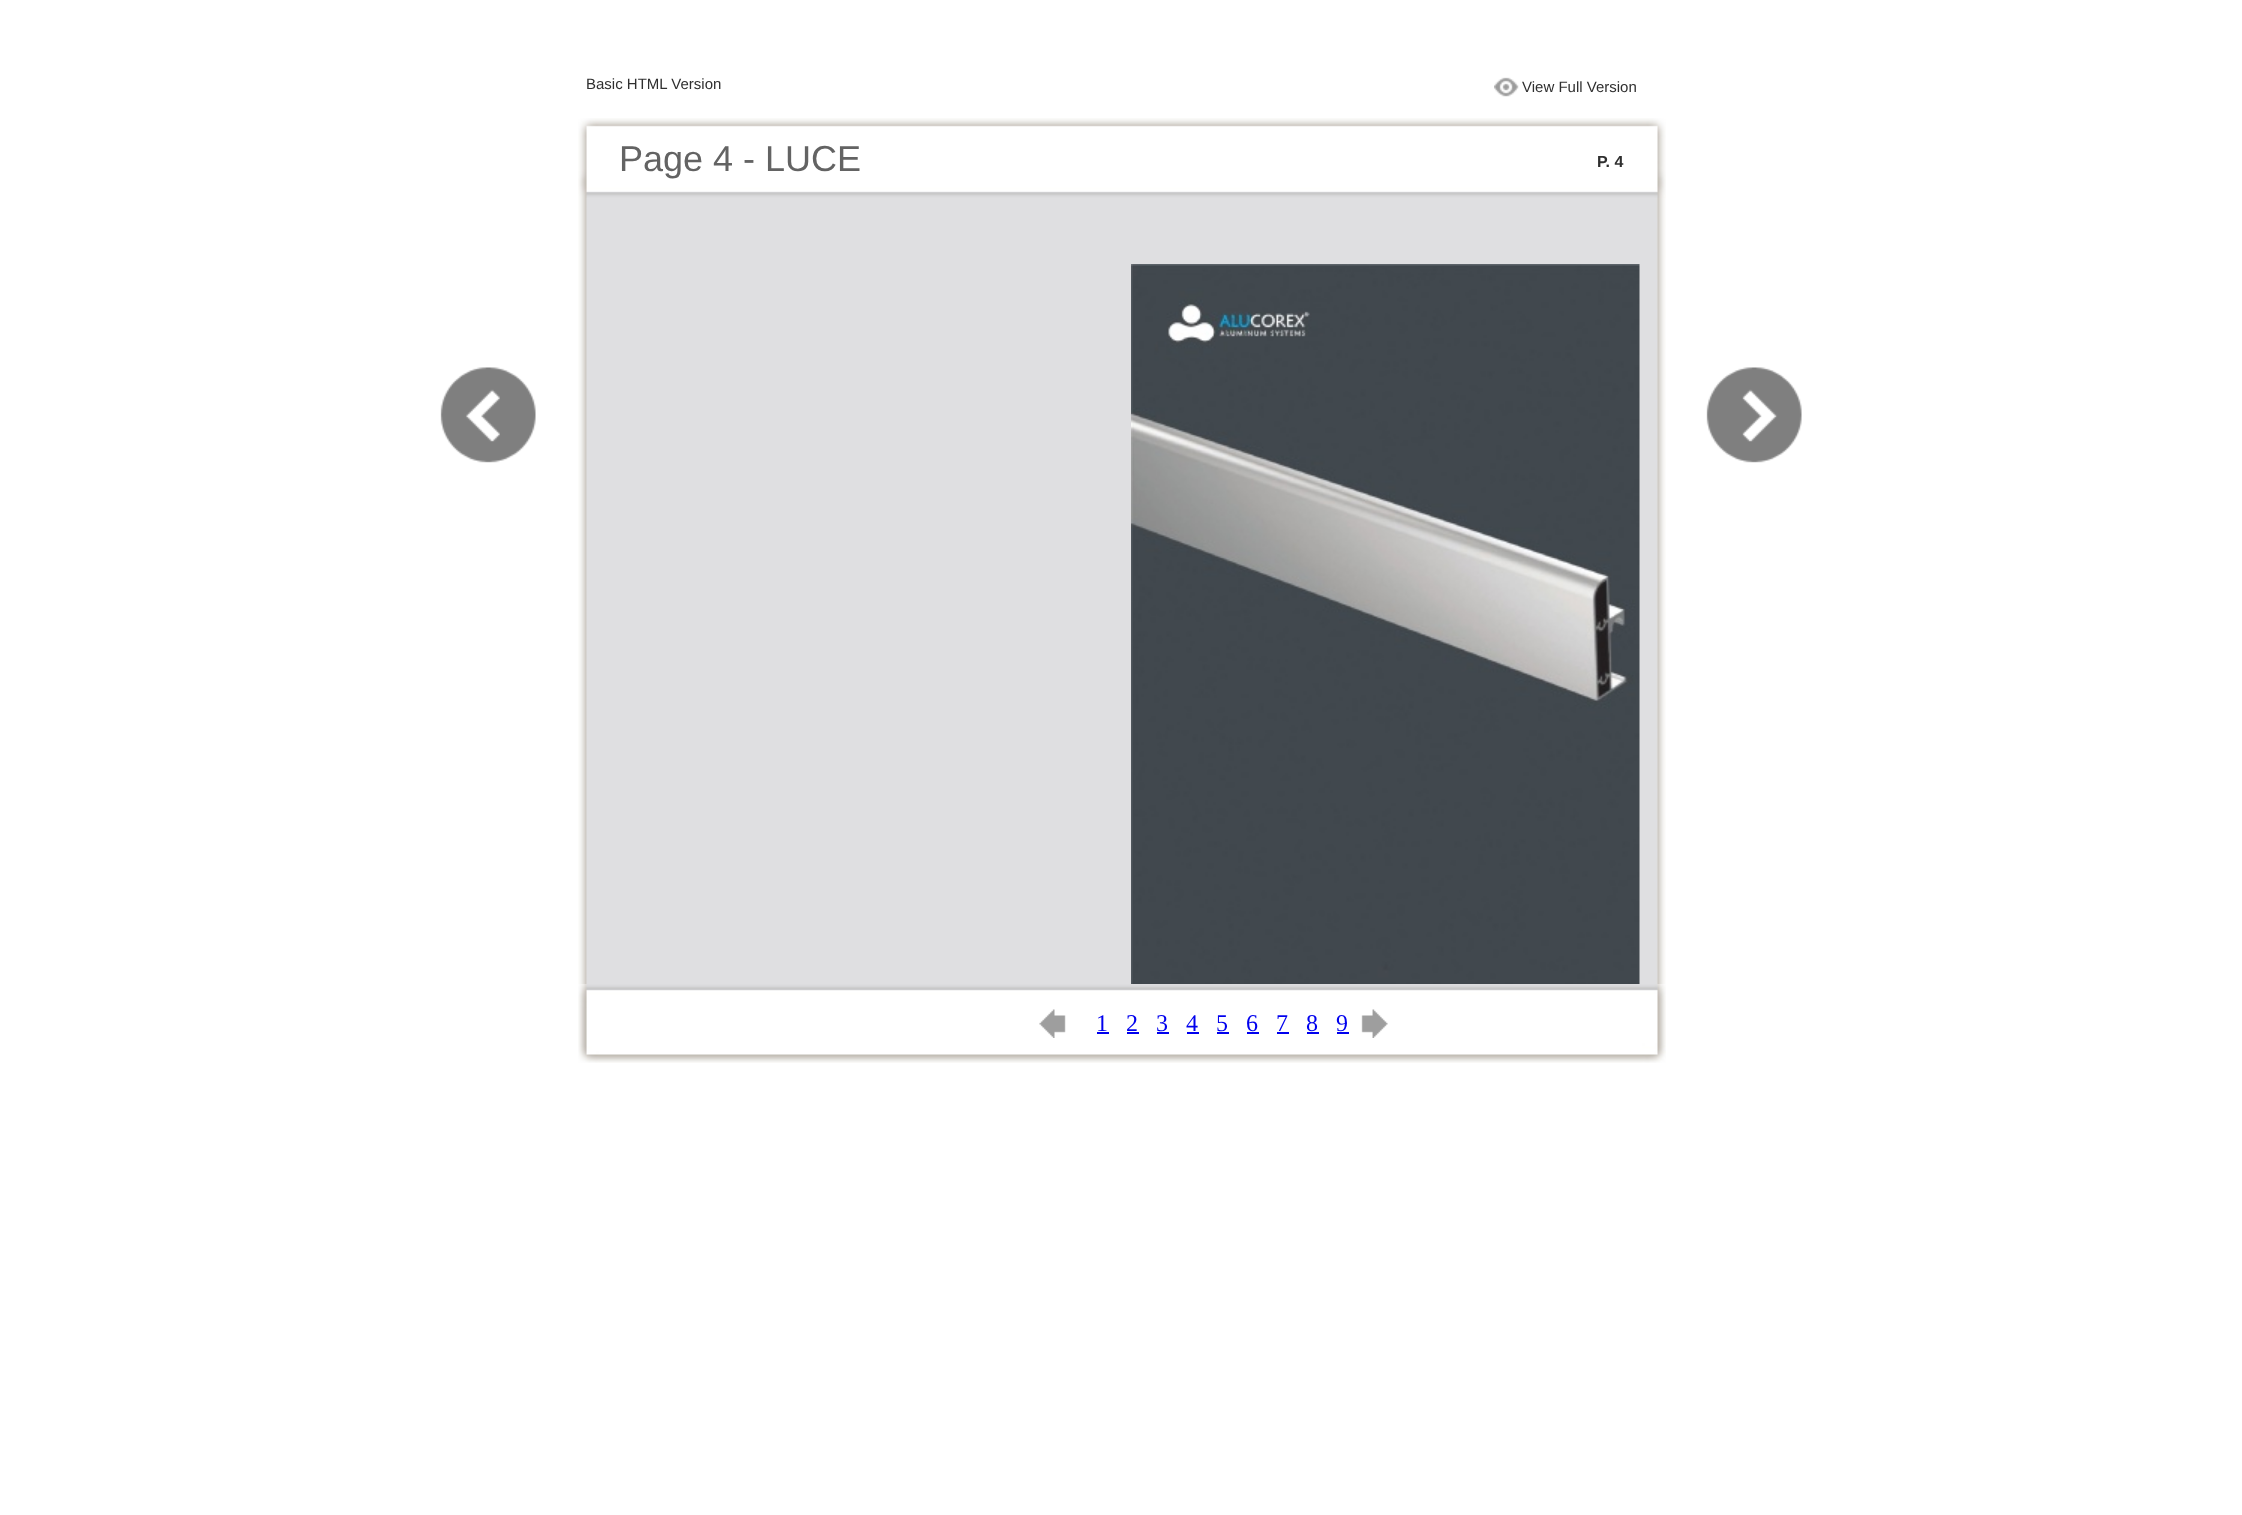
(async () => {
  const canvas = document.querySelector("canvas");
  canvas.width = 2242;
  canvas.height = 1515;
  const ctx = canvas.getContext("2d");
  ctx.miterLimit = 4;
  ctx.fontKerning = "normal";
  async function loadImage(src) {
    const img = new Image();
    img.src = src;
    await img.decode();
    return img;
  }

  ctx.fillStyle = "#ffffff";
  ctx.fillRect(0, 0, 2242, 1515);
  ctx.drawImage(await loadImage("img/1.png"), 440, 367, 96, 96);
  ctx.drawImage(await loadImage("img/2.png"), 1494, 77, 25, 20);
  ctx.drawImage(await loadImage("img/3.png"), 578, 118, 1088, 80);
  ctx.drawImage(await loadImage("img/4.png"), 578, 198, 1088, 786);
  ctx.drawImage(await loadImage("img/5.png"), 1131, 264, 509, 720);
  ctx.drawImage(await loadImage("img/6.png"), 578, 984, 1088, 79);
  ctx.drawImage(await loadImage("img/7.png"), 1039, 1009, 27, 29);
  for (const [x, y, w, h, color] of [
    [1097, 1032, 12, 2, "#0000ee"],
    [1127, 1032, 12, 2, "#0000ee"],
    [1157, 1032, 12, 2, "#0000ee"],
    [1187, 1032, 12, 2, "#0000ee"],
    [1217, 1032, 12, 2, "#0000ee"],
    [1247, 1032, 12, 2, "#0000ee"],
    [1277, 1032, 12, 2, "#0000ee"],
    [1307, 1032, 12, 2, "#0000ee"],
    [1337, 1032, 12, 2, "#0000ee"],
  ]) {
    ctx.fillStyle = color;
    ctx.fillRect(x, y, w, h);
  }
  ctx.drawImage(await loadImage("img/8.png"), 1361, 1009, 27, 29);
  ctx.drawImage(await loadImage("img/9.png"), 1706, 367, 96, 96);
  ctx.font = "15px Liberation Sans";
  ctx.fillStyle = "#2f2f2f";
  ctx.fillText("Basic HTML Version", 586, 89);
  ctx.fillText("View Full Version", 1522, 92);
  ctx.font = "36px Liberation Sans";
  ctx.fillStyle = "#636363";
  ctx.fillText("Page 4 - LUCE", 619, 171);
  ctx.font = "bold 16px Liberation Sans";
  ctx.fillStyle = "#2f2f2f";
  ctx.fillText("P. 4", 1597, 167);
  ctx.font = "24px Liberation Serif";
  ctx.fillStyle = "#0000ee";
  for (const [text, x, y] of [
    ["1", 1096, 1031],
    ["2", 1126, 1031],
    ["3", 1156, 1031],
    ["4", 1186, 1031],
    ["5", 1216, 1031],
    ["6", 1246, 1031],
    ["7", 1276, 1031],
    ["8", 1306, 1031],
    ["9", 1336, 1031],
  ]) {
    ctx.fillText(text, x, y);
  }
})();
